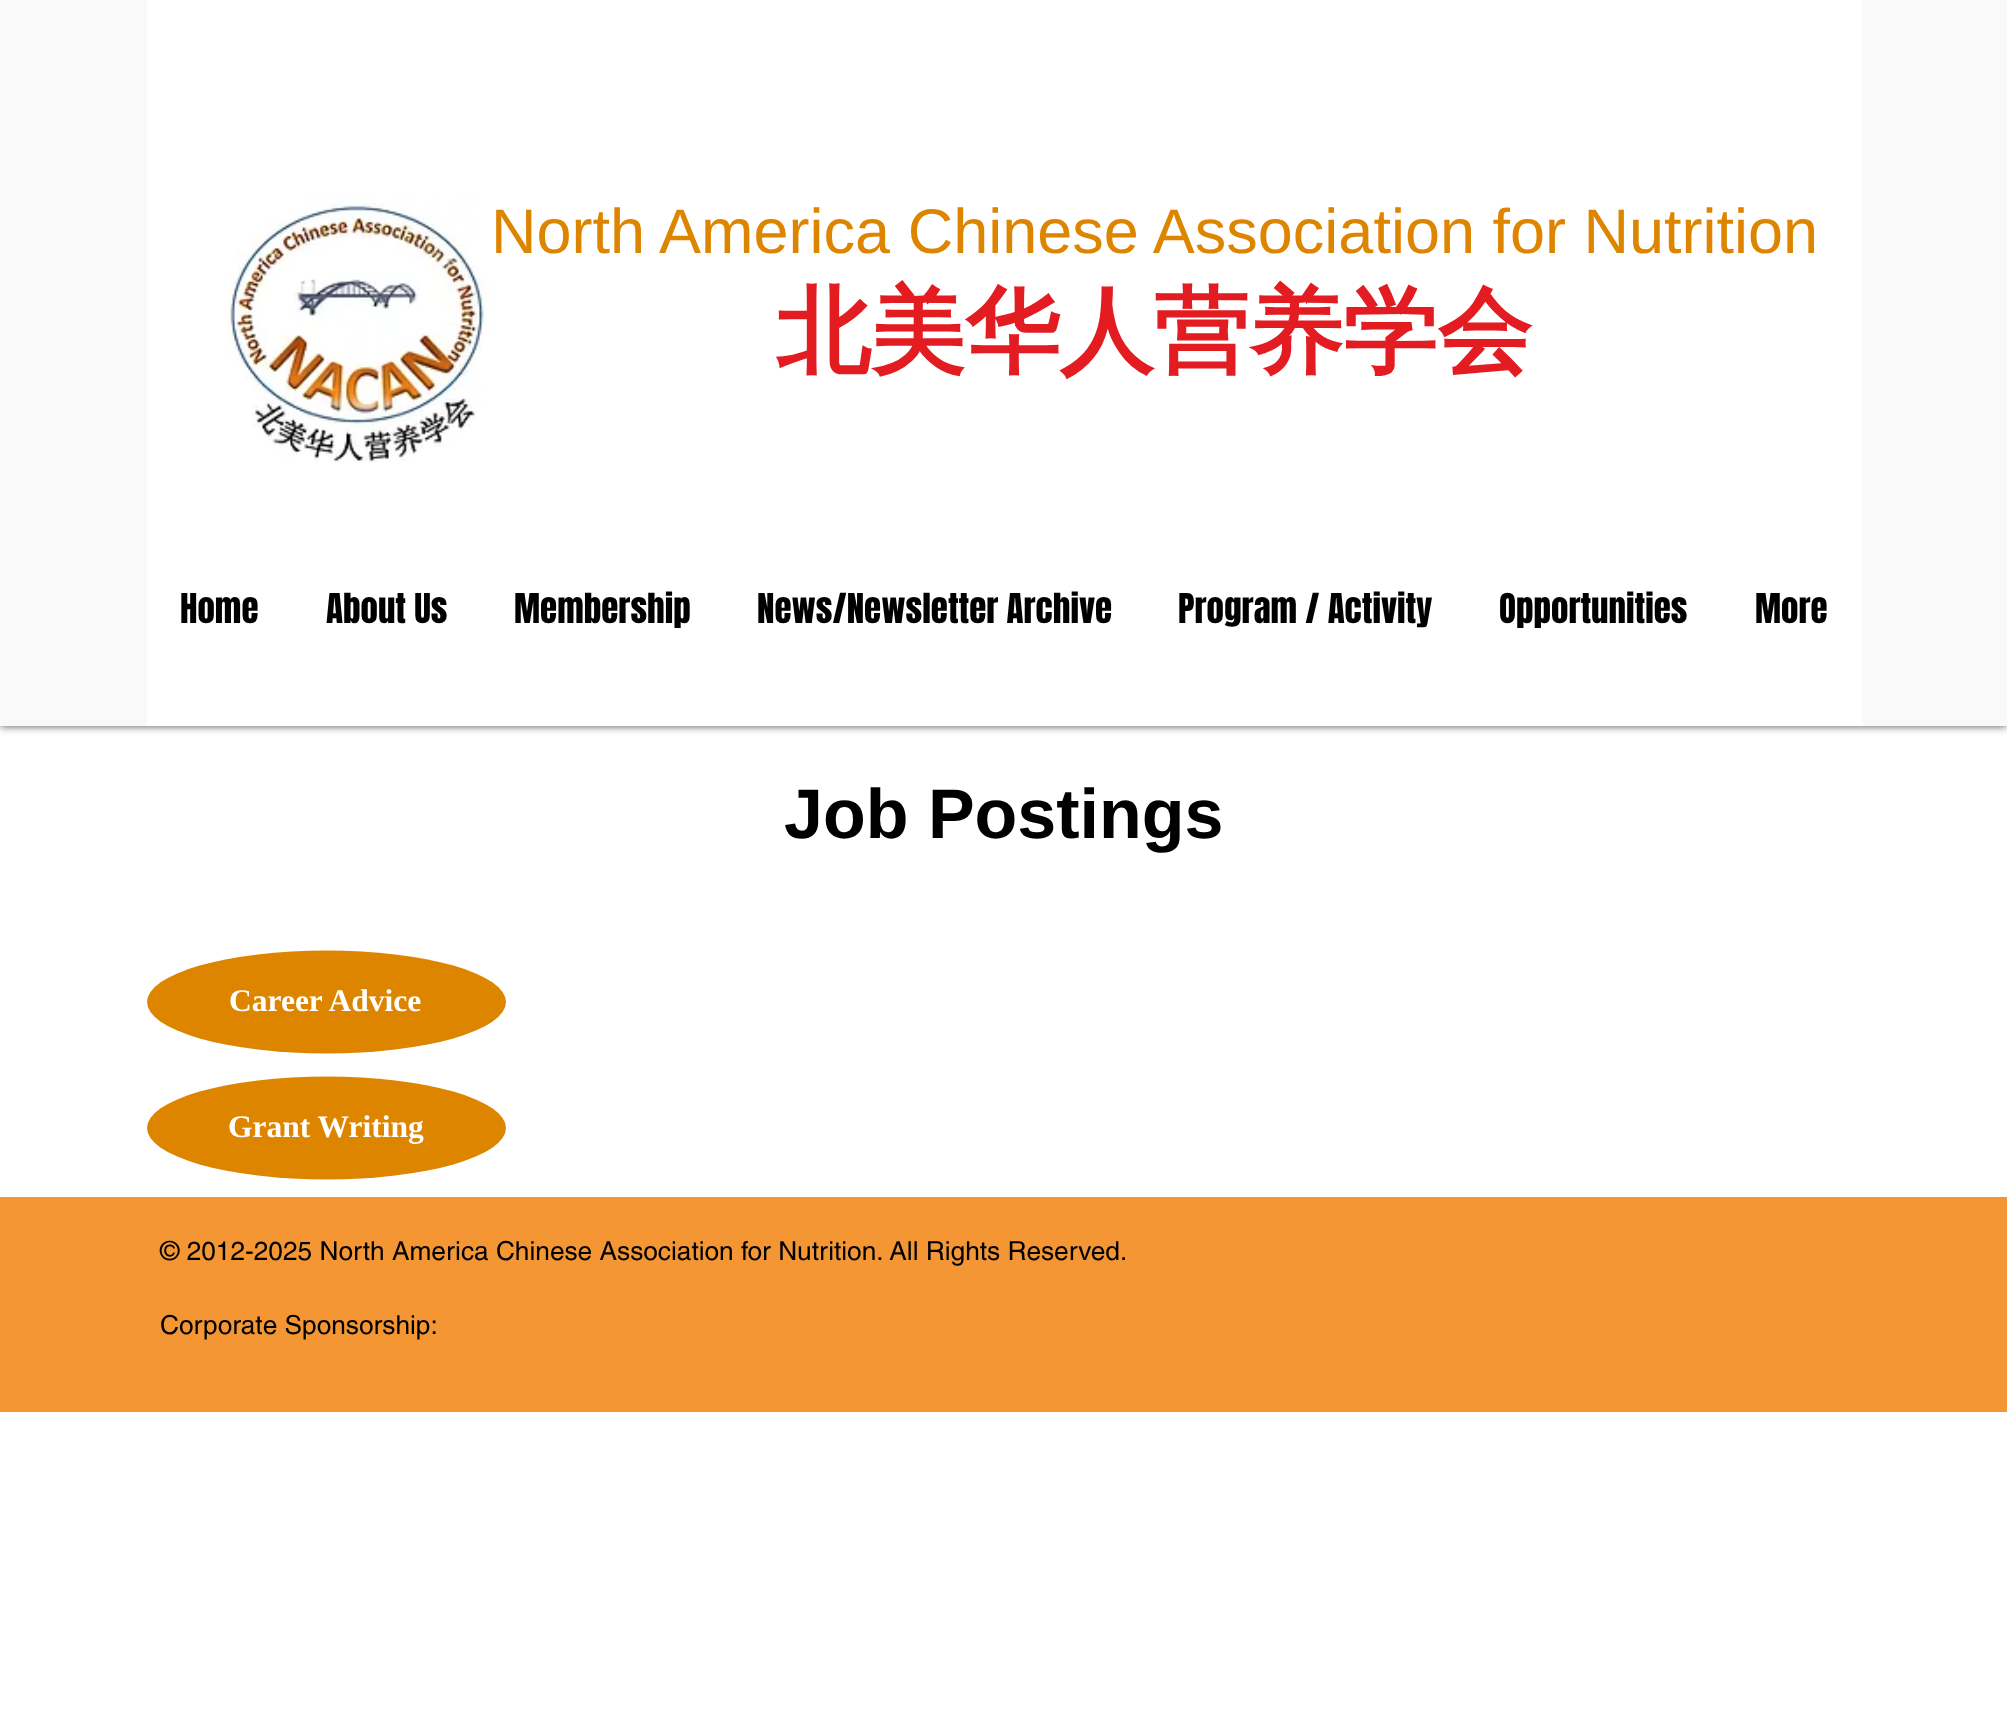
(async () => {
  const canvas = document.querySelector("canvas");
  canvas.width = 2007;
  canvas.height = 1717;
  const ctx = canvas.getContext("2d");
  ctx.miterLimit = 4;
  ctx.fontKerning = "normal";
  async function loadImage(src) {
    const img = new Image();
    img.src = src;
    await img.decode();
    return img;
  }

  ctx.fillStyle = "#ffffff";
  ctx.fillRect(0, 0, 2007, 1717);
  ctx.fillStyle = "rgba(0, 0, 0, 0.7)";
  ctx.filter = "blur(4.5px)";
  ctx.beginPath();
  ctx.rect(0, 0, 2007, 726);
  ctx.fill();
  ctx.filter = "none";
  ctx.fillStyle = "#f9f9f9";
  ctx.fillRect(0, 0, 2007, 726);
  ctx.fillStyle = "#ffffff";
  ctx.fillRect(147, 0, 1715, 726);
  ctx.drawImage(await loadImage("img/1.png"), 225, 196, 265, 267);
  ctx.fillStyle = "#de8500";
  ctx.beginPath();
  ctx.ellipse(326.5, 1002, 179.5, 51.5, 0, 0, Math.PI * 2);
  ctx.fill();
  ctx.beginPath();
  ctx.ellipse(326.5, 1128, 179.5, 51.5, 0, 0, Math.PI * 2);
  ctx.fill();
  ctx.fillStyle = "#f49634";
  ctx.fillRect(0, 1197, 2007, 215);
  ctx.font = "63px Liberation Sans";
  ctx.fillStyle = "#de8500";
  ctx.fillText("North America Chinese Association for Nutrition", 491, 253);
  ctx.font = "bold 94.5px WenQuanYi Zen Hei";
  ctx.fillStyle = "#e21c21";
  ctx.fillText("北美华人营养学会", 776, 364);
  ctx.font = "35px Anton";
  ctx.fillStyle = "#000000";
  for (const [text, x, y] of [
    ["Home", 180, 623],
    ["About Us", 326, 623],
    ["Membership", 514, 623],
    ["News/Newsletter Archive", 757, 623],
    ["Program / Activity", 1178, 623],
    ["Opportunities", 1499, 623],
    ["More", 1755, 623],
  ]) {
    ctx.fillText(text, x, y);
  }
  ctx.font = "bold 70px Liberation Sans";
  ctx.fillText("Job Postings", 784, 838);
  ctx.font = "bold 31.5px Liberation Serif";
  ctx.fillStyle = "#ffffff";
  ctx.fillText("Career Advice", 229, 1011);
  ctx.fillText("Grant Writing", 228, 1137);
  ctx.font = "26.25px helvetica";
  ctx.fillStyle = "#000000";
  ctx.fillText("© 2012-2025 North America Chinese Association for Nutrition. All Rights Reserved.", 160, 1260);
  ctx.fillText("Corporate Sponsorship:", 160, 1334);
})();
